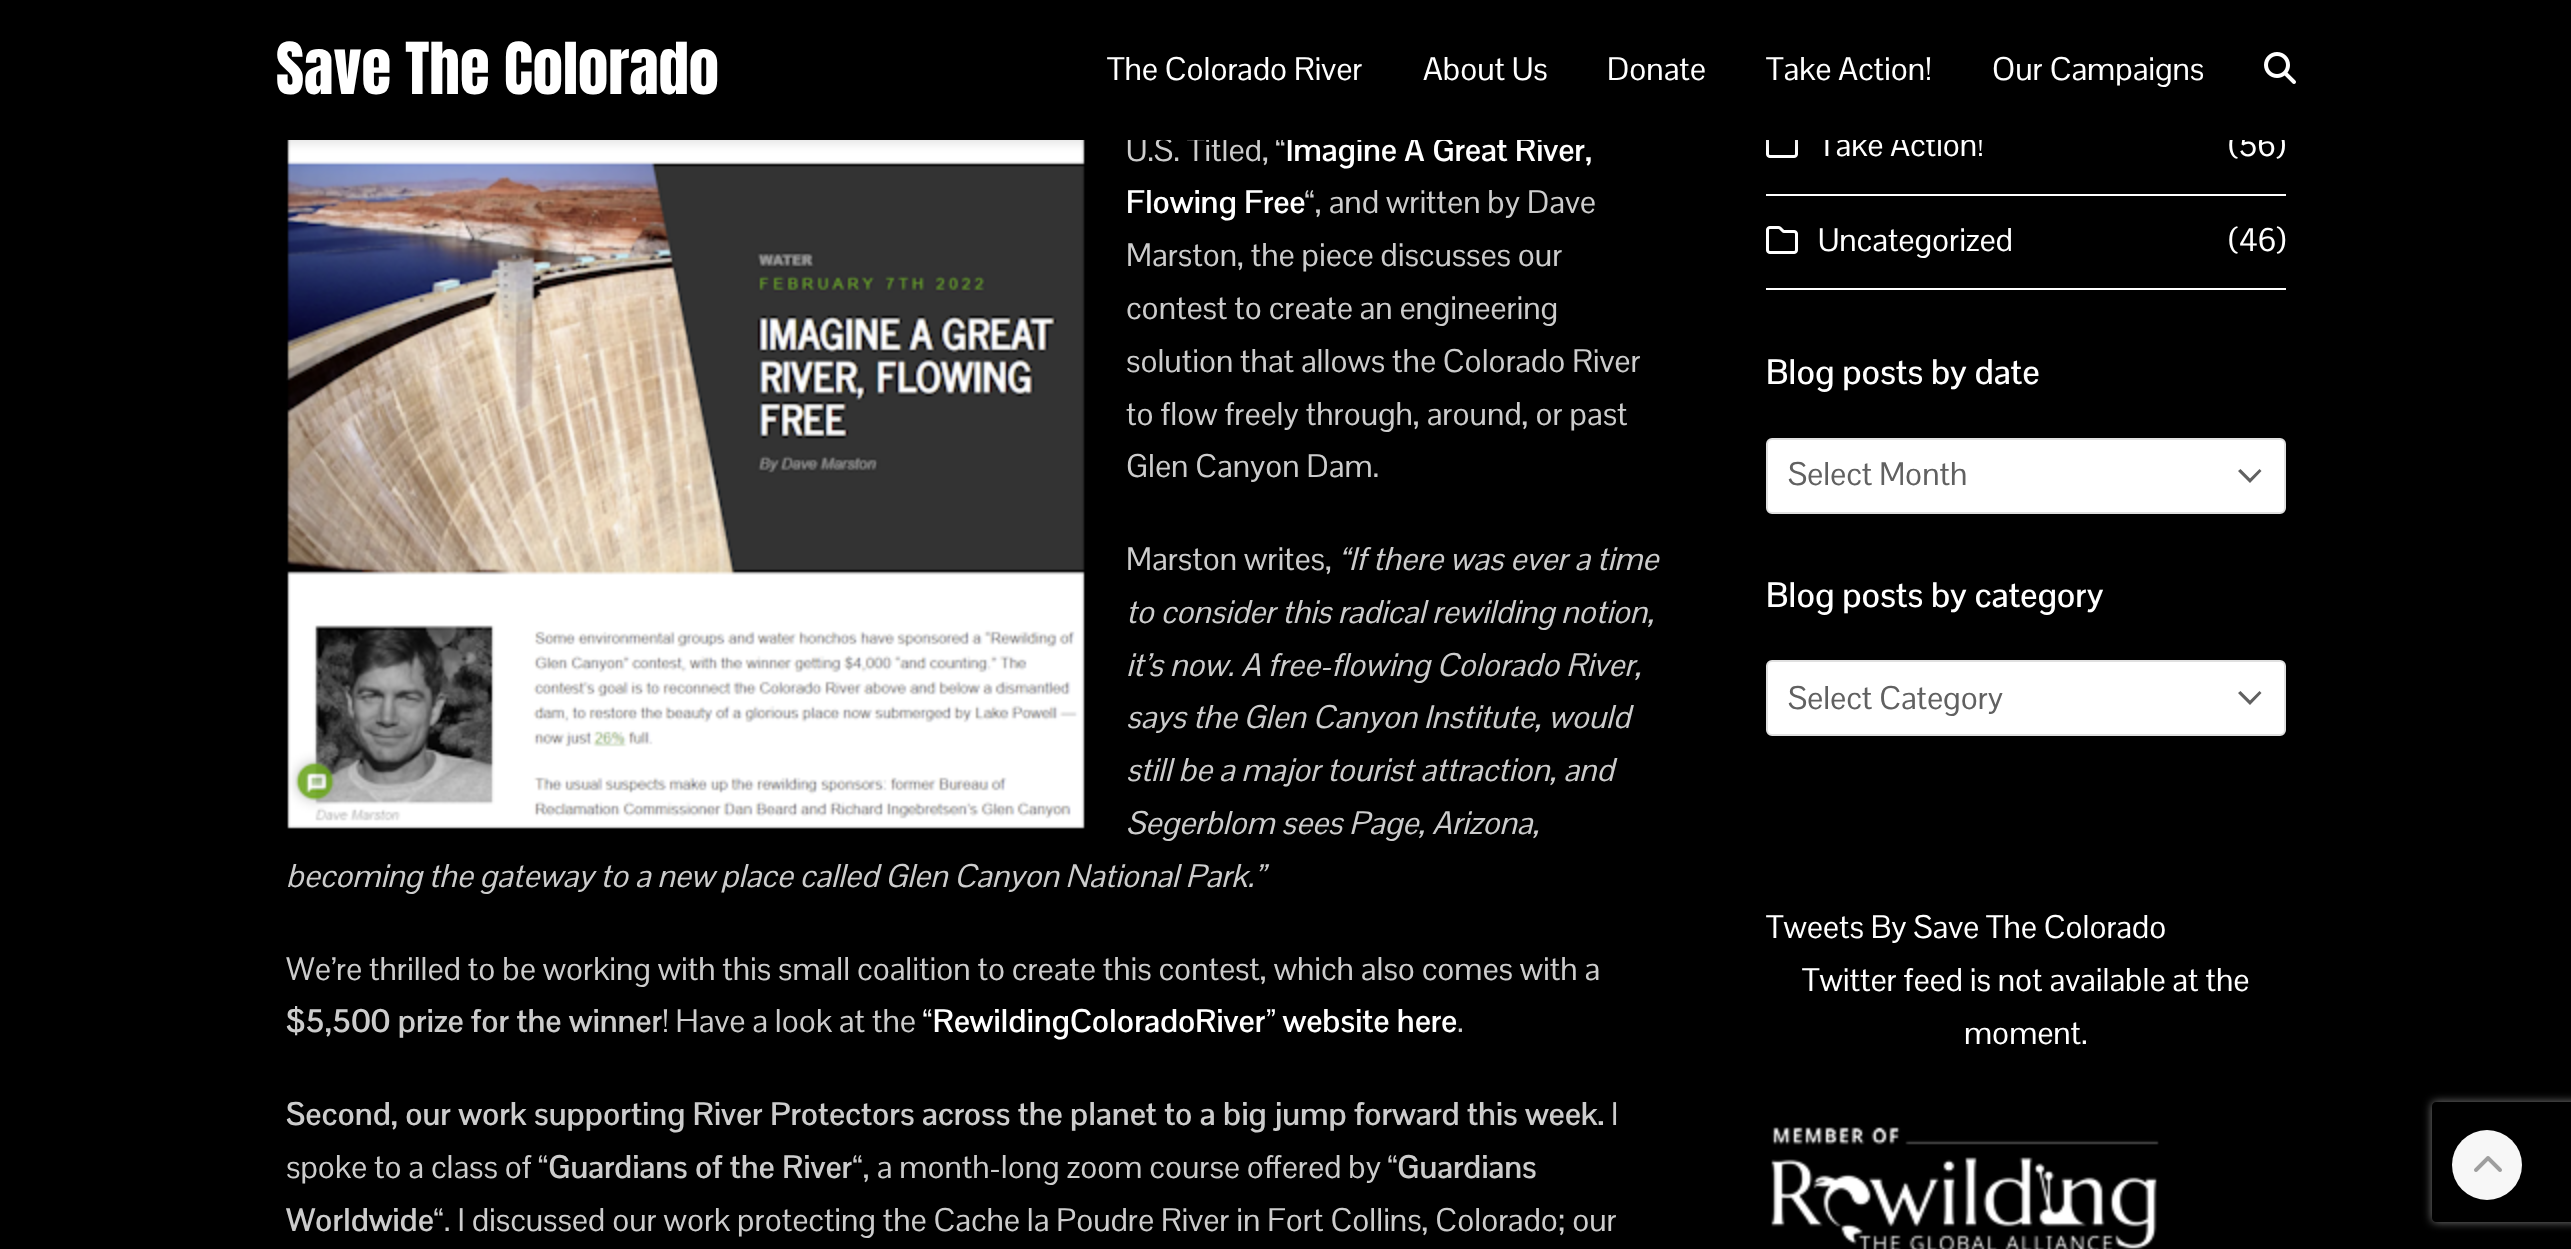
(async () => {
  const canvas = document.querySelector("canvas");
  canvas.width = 2571;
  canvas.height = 1249;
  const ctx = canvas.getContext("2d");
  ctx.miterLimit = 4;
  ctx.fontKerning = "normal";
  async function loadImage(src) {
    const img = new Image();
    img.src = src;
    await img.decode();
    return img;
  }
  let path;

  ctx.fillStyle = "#000000";
  ctx.fillRect(0, 0, 2571, 1249);
  ctx.drawImage(await loadImage("img/2.png"), 286, 140, 799, 689);
  ctx.drawImage(await loadImage("img/3.png"), 1766, 140, 32, 18);
  ctx.fillStyle = "rgba(0, 0, 0, 0.1)";
  ctx.filter = "blur(5px)";
  ctx.beginPath();
  ctx.rect(0, 4, 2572, 140);
  ctx.fill();
  ctx.filter = "none";
  ctx.drawImage(await loadImage("img/1.png"), 2264, 52, 32, 32);
  ctx.fillStyle = "#ffffff";
  ctx.fillRect(1766, 194, 520, 2);
  ctx.fillRect(1766, 288, 520, 2);
  ctx.drawImage(await loadImage("img/4.png"), 1766, 226, 32, 28);
  ctx.beginPath();
  ctx.roundRect(1767, 439, 518, 74, 5);
  ctx.fill();
  ctx.strokeStyle = "#e0e0e0";
  ctx.lineWidth = 2;
  ctx.stroke();
  ctx.fillStyle = "#616161";
  path = new Path2D("M2240.5 469L2238 471L2250 483L2261.5 471L2259.5 469L2250 478.5Z");
  ctx.fill(path);
  ctx.fillStyle = "#ffffff";
  ctx.beginPath();
  ctx.roundRect(1767, 661, 518, 74, 5);
  ctx.fill();
  ctx.stroke();
  ctx.fillStyle = "#616161";
  path = new Path2D("M2240.5 691L2238 693L2250 705L2261.5 693L2259.5 691L2250 700.5Z");
  ctx.fill(path);
  ctx.drawImage(await loadImage("img/5.png"), 1771, 1127, 388, 122);
  ctx.save();
  path = new Path2D("M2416 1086H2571V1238H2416ZM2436 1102H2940C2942 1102 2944 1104 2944 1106V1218C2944 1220 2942 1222 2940 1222H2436C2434 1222 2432 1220 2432 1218V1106C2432 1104 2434 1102 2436 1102Z");
  ctx.clip(path, "evenodd");
  ctx.fillStyle = "#808080";
  ctx.filter = "blur(5px)";
  ctx.beginPath();
  ctx.roundRect(2432, 1102, 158, 120, 4);
  ctx.fill();
  ctx.filter = "none";
  ctx.restore();
  ctx.fillStyle = "#f7f7f7";
  ctx.beginPath();
  ctx.arc(2487, 1165, 35, 0, Math.PI * 2);
  ctx.fill();
  ctx.drawImage(await loadImage("img/6.png"), 2474, 1156, 28, 16);
  ctx.font = "60.75px Anton";
  ctx.fillStyle = "#ffffff";
  ctx.fillText("Save The Colorado", 276, 94);
  ctx.font = "32px Pontano Sans";
  for (const [text, x, y] of [
    ["The Colorado River", 1107, 80],
    ["About Us", 1423, 80],
    ["Donate", 1607, 80],
    ["Take Action!", 1766, 80],
    ["Our Campaigns", 1992, 80],
  ]) {
    ctx.fillText(text, x, y);
  }
  ctx.fillStyle = "#cccccc";
  ctx.fillText("U.S. Titled, “", 1126, 161);
  ctx.font = "bold 32px Pontano Sans";
  ctx.fillStyle = "#ffffff";
  ctx.fillText("Imagine A Great River,", 1286, 161);
  ctx.fillText("Flowing Free", 1126, 213);
  ctx.font = "32px Pontano Sans";
  ctx.fillStyle = "#cccccc";
  for (const [text, x, y] of [
    ["“, and written by Dave", 1305, 213],
    ["Marston, the piece discusses our", 1126, 266],
    ["contest to create an engineering", 1126, 319],
    ["solution that allows the Colorado River", 1126, 372],
    ["to flow freely through, around, or past", 1126, 425],
    ["Glen Canyon Dam.", 1126, 477],
    ["Marston writes,", 1126, 570],
  ]) {
    ctx.fillText(text, x, y);
  }
  ctx.font = "italic 32px Pontano Sans";
  for (const [text, x, y] of [
    ["“If there was ever a time", 1339, 570],
    ["to consider this radical rewilding notion,", 1126, 623],
    ["it’s now. A free-flowing Colorado River,", 1126, 676],
    ["says the Glen Canyon Institute, would", 1126, 728],
    ["still be a major tourist attraction, and", 1126, 781],
    ["Segerblom sees Page, Arizona,", 1126, 834],
    ["becoming the gateway to a new place called Glen Canyon National Park.”", 286, 887],
  ]) {
    ctx.fillText(text, x, y);
  }
  ctx.font = "32px Pontano Sans";
  ctx.fillText("We’re thrilled to be working with this small coalition to create this contest, which also comes with a", 286, 980);
  ctx.font = "bold 32px Pontano Sans";
  ctx.fillText("$5,500 prize for the winner", 286, 1032);
  ctx.font = "32px Pontano Sans";
  ctx.fillText("! Have a look at the", 662, 1032);
  ctx.font = "bold 32px Pontano Sans";
  ctx.fillStyle = "#ffffff";
  ctx.fillText("“RewildingColoradoRiver” website here", 923, 1032);
  ctx.font = "32px Pontano Sans";
  ctx.fillStyle = "#cccccc";
  ctx.fillText(".", 1457, 1032);
  ctx.font = "bold 32px Pontano Sans";
  ctx.fillText("Second, our work supporting River Protectors across the planet to a big jump forward this week.", 286, 1125);
  ctx.font = "32px Pontano Sans";
  ctx.fillText("I", 1611, 1125);
  ctx.fillText("spoke to a class of “", 286, 1178);
  ctx.font = "bold 32px Pontano Sans";
  ctx.fillText("Guardians of the River", 548, 1178);
  ctx.font = "32px Pontano Sans";
  ctx.fillText("“, a month-long zoom course offered by “", 853, 1178);
  ctx.font = "bold 32px Pontano Sans";
  ctx.fillText("Guardians", 1397, 1178);
  ctx.fillText("Worldwide", 286, 1231);
  ctx.font = "32px Pontano Sans";
  ctx.fillText("“. I discussed our work protecting the Cache la Poudre River in Fort Collins, Colorado; our", 434, 1231);
  ctx.fillStyle = "#ffffff";
  ctx.fillText("Take Action!", 1818, 156);
  ctx.fillText("(56)", 2229, 156);
  ctx.fillStyle = "#000000";
  ctx.fillRect(1127, 131, 1158, 9);
  ctx.fillStyle = "#ffffff";
  ctx.fillText("Uncategorized", 1818, 251);
  ctx.fillText("(46)", 2229, 251);
  ctx.font = "600 34.5px Pontano Sans";
  ctx.fillText("Blog posts by date", 1766, 384);
  ctx.font = "32px Pontano Sans";
  ctx.fillStyle = "#616161";
  ctx.fillText("Select Month", 1788, 485);
  ctx.font = "600 34.5px Pontano Sans";
  ctx.fillStyle = "#ffffff";
  ctx.fillText("Blog posts by category", 1766, 607);
  ctx.font = "32px Pontano Sans";
  ctx.fillStyle = "#616161";
  ctx.fillText("Select Category", 1788, 709);
  ctx.fillStyle = "#ffffff";
  for (const [text, x, y] of [
    ["Tweets By Save The Colorado", 1766, 938],
    ["Twitter feed is not available at the", 1802, 991],
    ["moment.", 1964, 1044],
  ]) {
    ctx.fillText(text, x, y);
  }
})();
